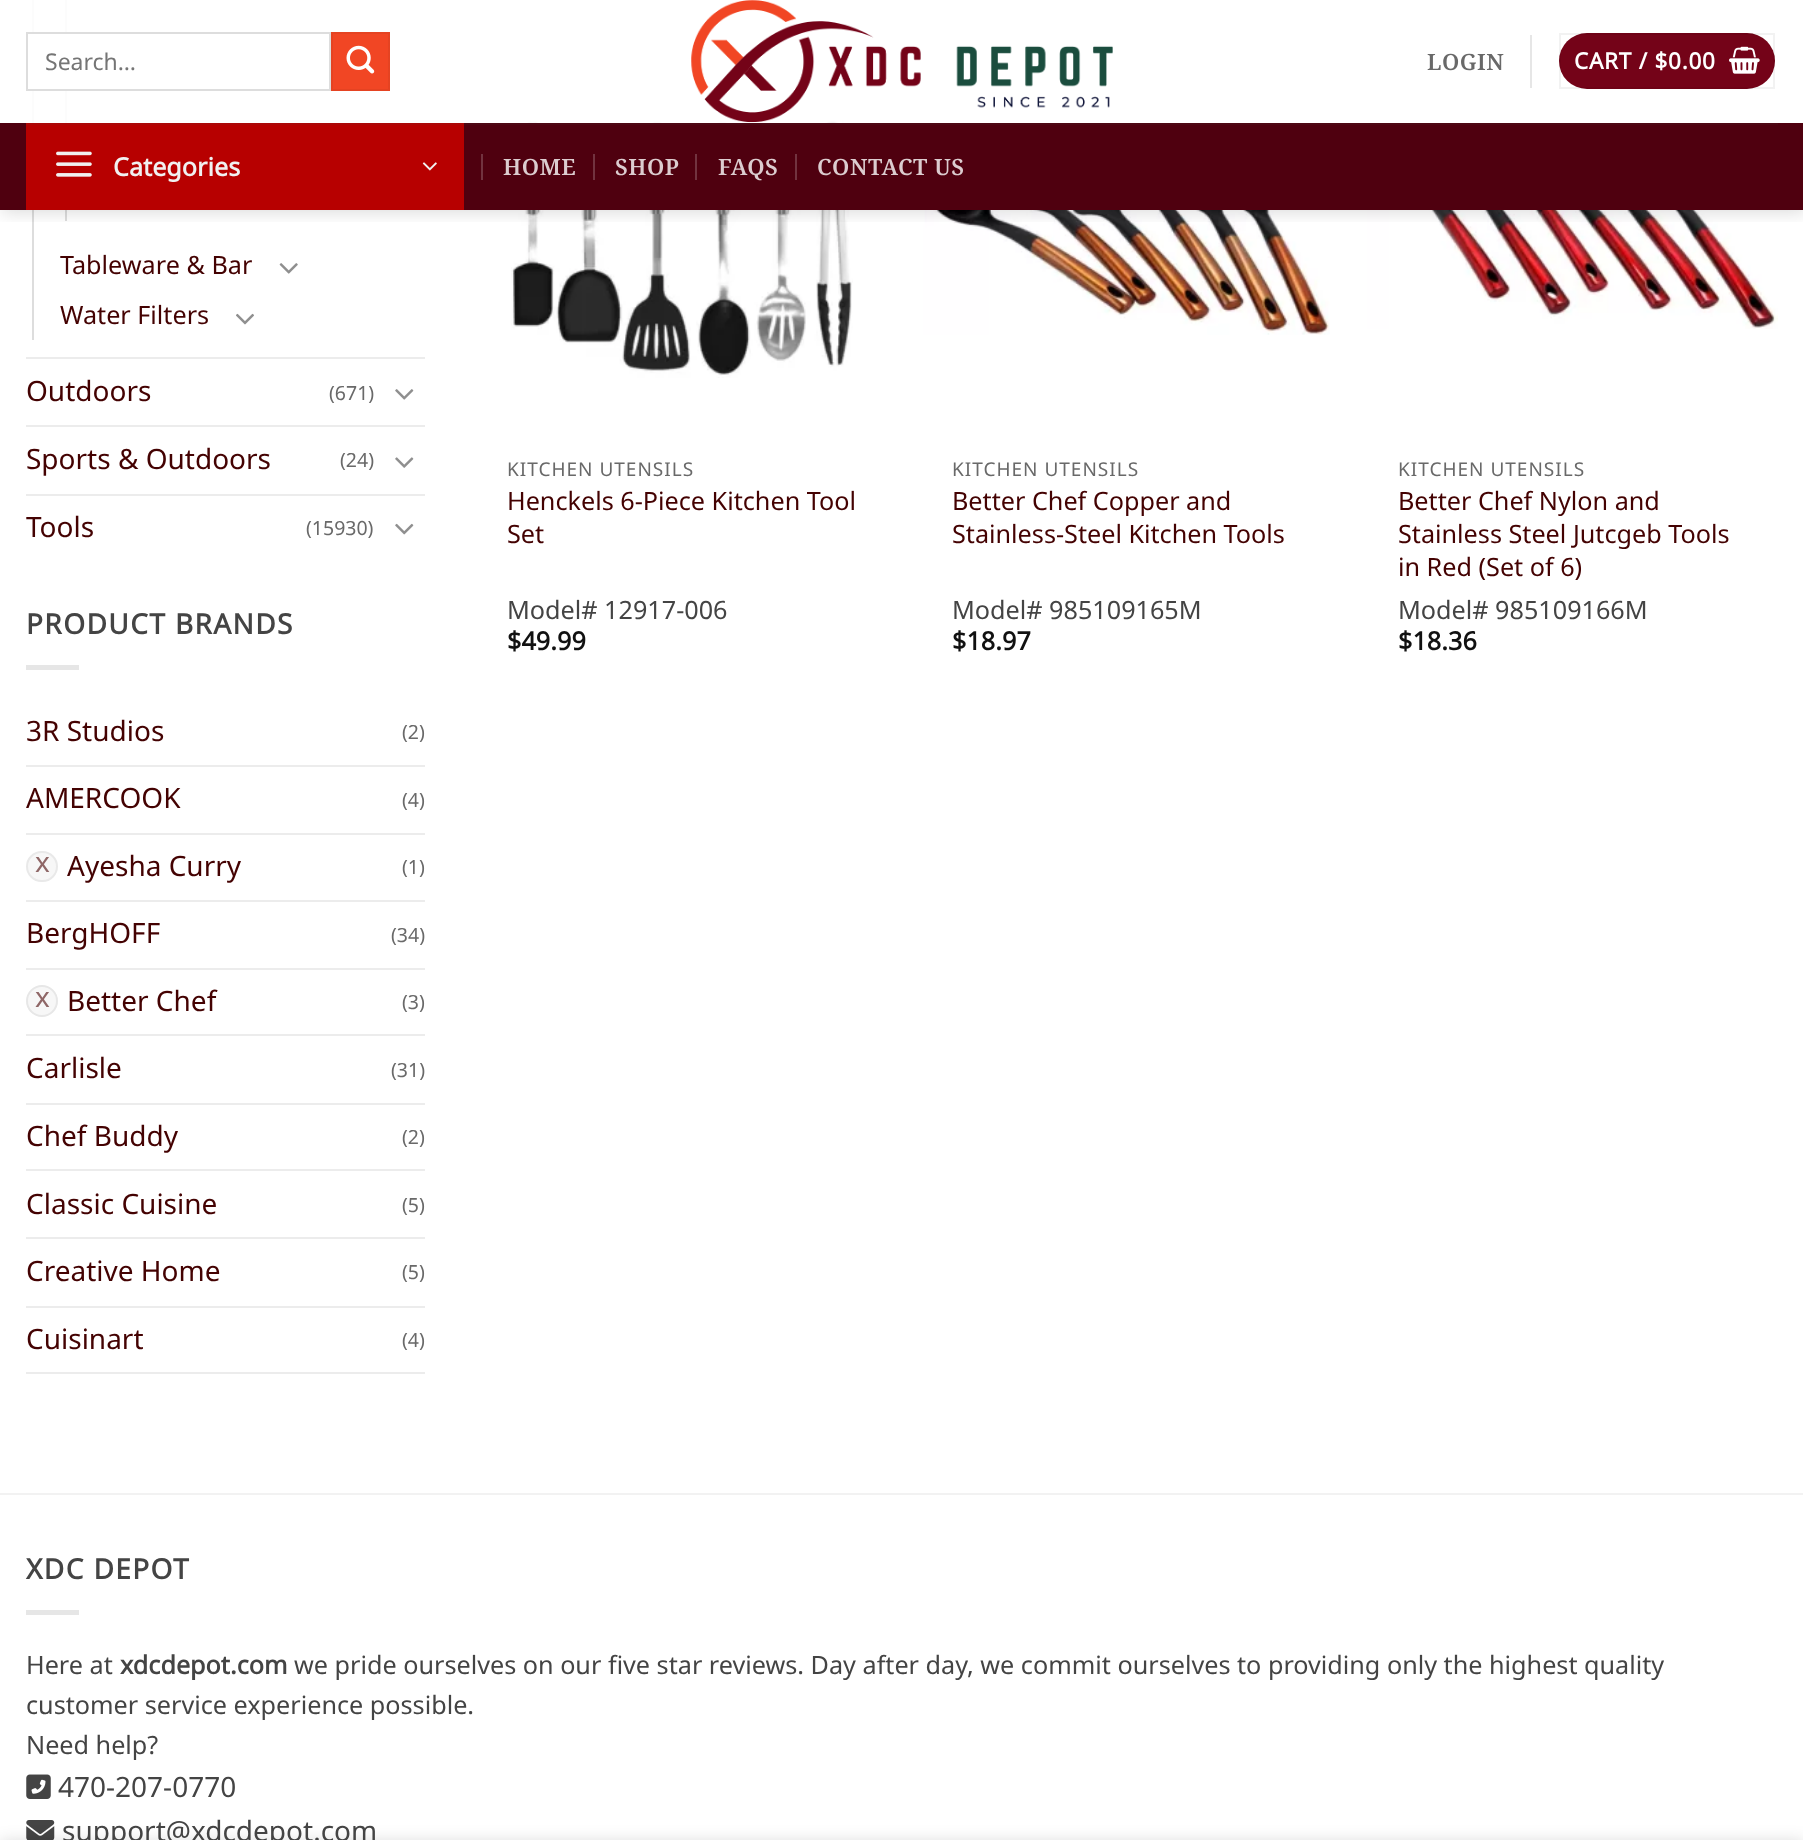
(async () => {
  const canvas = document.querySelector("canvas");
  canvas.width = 1803;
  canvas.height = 1840;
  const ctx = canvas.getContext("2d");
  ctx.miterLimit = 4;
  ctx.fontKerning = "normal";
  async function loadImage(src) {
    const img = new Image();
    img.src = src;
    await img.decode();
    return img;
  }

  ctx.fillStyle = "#ffffff";
  ctx.fillRect(0, 0, 1803, 1840);
  ctx.fillStyle = "#dddddd";
  ctx.fillRect(32, 0, 2, 340);
  ctx.fillRect(65, 0, 2, 221);
  ctx.drawImage(await loadImage("img/11.png"), 511, 120, 342, 258);
  ctx.drawImage(await loadImage("img/12.png"), 923, 210, 407, 125);
  ctx.drawImage(await loadImage("img/13.png"), 1367, 210, 411, 119);
  ctx.save();
  ctx.beginPath();
  ctx.rect(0, 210, 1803, 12);
  ctx.clip();
  ctx.fillStyle = "rgba(0, 0, 0, 0.15)";
  ctx.filter = "blur(9px)";
  ctx.beginPath();
  ctx.rect(2, 2, 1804, 210);
  ctx.fill();
  ctx.filter = "none";
  ctx.restore();
  ctx.fillStyle = "rgba(255, 255, 255, 0.9)";
  ctx.fillRect(32, 0, 810, 123);
  ctx.fillStyle = "#ffffff";
  ctx.fillRect(32, 34, 35, 55);
  ctx.strokeStyle = "#dddddd";
  ctx.lineWidth = 2;
  ctx.strokeRect(27, 33, 303, 57);
  ctx.fillStyle = "#f14624";
  ctx.beginPath();
  ctx.rect(332, 33, 57, 57);
  ctx.fill();
  ctx.strokeStyle = "#e54322";
  ctx.stroke();
  ctx.drawImage(await loadImage("img/1.png"), 346, 45, 29, 29);
  ctx.drawImage(await loadImage("img/2.png"), 691, 0, 422, 123);
  ctx.fillStyle = "#e6e6e6";
  ctx.fillRect(1530, 35, 2, 53);
  ctx.fillStyle = "#740318";
  ctx.beginPath();
  ctx.roundRect(1559, 33, 216, 56, 28);
  ctx.fill();
  ctx.strokeStyle = "rgba(0, 0, 0, 0.05)";
  ctx.strokeRect(1560, 34, 214, 54);
  ctx.drawImage(await loadImage("img/3.png"), 1729, 46, 31, 28);
  for (const [x, y, w, h, color] of [
    [0, 123, 1803, 87, "#4f000f"],
    [26, 123, 438, 87, "#b70000"],
    [26, 123, 1752, 2, "rgba(68, 68, 68, 0.1)"],
  ]) {
    ctx.fillStyle = color;
    ctx.fillRect(x, y, w, h);
  }
  ctx.drawImage(await loadImage("img/4.png"), 56, 151, 36, 26);
  ctx.drawImage(await loadImage("img/5.png"), 422, 162, 15, 9);
  for (const [x, y, w, h, color] of [
    [481, 154, 2, 26, "#72333f"],
    [593, 154, 2, 26, "#72333f"],
    [695, 154, 2, 26, "#72333f"],
    [795, 154, 2, 26, "#72333f"],
  ]) {
    ctx.fillStyle = color;
    ctx.fillRect(x, y, w, h);
  }
  ctx.drawImage(await loadImage("img/6.png"), 279, 263, 19, 11);
  ctx.drawImage(await loadImage("img/7.png"), 236, 313, 18, 12);
  ctx.fillStyle = "#ececec";
  ctx.fillRect(26, 357, 399, 2);
  ctx.drawImage(await loadImage("img/8.png"), 395, 389, 19, 11);
  ctx.fillRect(26, 425, 399, 2);
  ctx.drawImage(await loadImage("img/9.png"), 395, 457, 19, 11);
  ctx.fillRect(26, 494, 399, 2);
  ctx.drawImage(await loadImage("img/10.png"), 395, 523, 19, 12);
  for (const [x, y, w, h, color] of [
    [26, 665, 53, 5, "#e6e6e6"],
    [26, 765, 399, 2, "#ececec"],
    [26, 833, 399, 2, "#ececec"],
  ]) {
    ctx.fillStyle = color;
    ctx.fillRect(x, y, w, h);
  }
  ctx.fillStyle = "#f7f7f7";
  ctx.beginPath();
  ctx.roundRect(27, 852, 30, 29, 14.5);
  ctx.fill();
  ctx.strokeStyle = "#e9e9e9";
  ctx.stroke();
  ctx.fillStyle = "#ececec";
  ctx.fillRect(26, 900, 399, 2);
  ctx.fillRect(26, 968, 399, 2);
  ctx.fillStyle = "#f7f7f7";
  ctx.beginPath();
  ctx.arc(42, 1001, 16, 0, Math.PI * 2);
  ctx.fill();
  ctx.beginPath();
  ctx.arc(42, 1001, 15, 0, Math.PI * 2);
  ctx.strokeStyle = "rgba(102, 102, 102, 0.1)";
  ctx.stroke();
  for (const [x, y, w, h, color] of [
    [26, 1034, 399, 2, "#ececec"],
    [26, 1103, 399, 2, "#ececec"],
    [26, 1169, 399, 2, "#ececec"],
    [26, 1237, 399, 2, "#ececec"],
    [26, 1306, 399, 2, "#ececec"],
    [26, 1372, 399, 2, "#ececec"],
    [0, 1493, 1803, 2, "#f2f2f2"],
    [26, 1610, 53, 5, "#e6e6e6"],
  ]) {
    ctx.fillStyle = color;
    ctx.fillRect(x, y, w, h);
  }
  ctx.drawImage(await loadImage("img/14.png"), 26, 1774, 25, 25);
  ctx.drawImage(await loadImage("img/15.png"), 26, 1820, 29, 20);
  ctx.fillStyle = "rgba(0, 0, 0, 0.14)";
  ctx.filter = "blur(8px)";
  ctx.beginPath();
  ctx.rect(0, 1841, 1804, 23);
  ctx.fill();
  ctx.filter = "none";
  ctx.font = "23px Noto Sans";
  ctx.fillStyle = "#757575";
  ctx.fillText("Search…", 45, 70);
  ctx.letterSpacing = "0.5px";
  ctx.font = "600 22.5px Noto Serif";
  ctx.fillStyle = "#696969";
  ctx.fillText("LOGIN", 1427, 70);
  ctx.letterSpacing = "0.75px";
  ctx.font = "bold 22.5px Noto Sans";
  ctx.fillStyle = "#ffffff";
  ctx.fillText("CART / $0.00", 1574, 69);
  ctx.letterSpacing = "0px";
  ctx.font = "bold 25.2px Noto Sans";
  ctx.fillStyle = "#f1f1f1";
  ctx.fillText("Categories", 113, 176);
  ctx.letterSpacing = "0.5px";
  ctx.font = "600 22.5px Noto Serif";
  ctx.fillStyle = "#dccccf";
  for (const [text, x, y] of [
    ["HOME", 503, 175],
    ["SHOP", 615, 175],
    ["FAQS", 718, 175],
    ["CONTACT US", 817, 175],
  ]) {
    ctx.fillText(text, x, y);
  }
  ctx.letterSpacing = "0px";
  ctx.font = "25.2px Noto Sans";
  ctx.fillStyle = "#440202";
  ctx.fillText("Tableware & Bar", 60, 274);
  ctx.fillText("Water Filters", 60, 324);
  ctx.font = "28px Noto Sans";
  ctx.fillText("Outdoors", 26, 401);
  ctx.font = "19.5px Noto Sans";
  ctx.fillStyle = "#696969";
  ctx.fillText("(671)", 329, 400);
  ctx.font = "28px Noto Sans";
  ctx.fillStyle = "#440202";
  ctx.fillText("Sports & Outdoors", 26, 469);
  ctx.font = "19.5px Noto Sans";
  ctx.fillStyle = "#696969";
  ctx.fillText("(24)", 340, 467);
  ctx.font = "28px Noto Sans";
  ctx.fillStyle = "#440202";
  ctx.fillText("Tools", 26, 537);
  ctx.font = "19.5px Noto Sans";
  ctx.fillStyle = "#696969";
  ctx.fillText("(15930)", 306, 535);
  ctx.letterSpacing = "1.4px";
  ctx.font = "bold 28px Noto Sans";
  ctx.fillStyle = "#444444";
  ctx.fillText("PRODUCT BRANDS", 26, 634);
  ctx.letterSpacing = "0px";
  ctx.font = "28px Noto Sans";
  ctx.fillStyle = "#440202";
  ctx.fillText("3R Studios", 26, 741);
  ctx.font = "19.5px Noto Sans";
  ctx.fillStyle = "#696969";
  ctx.fillText("(2)", 402, 739);
  ctx.font = "28px Noto Sans";
  ctx.fillStyle = "#440202";
  ctx.fillText("AMERCOOK", 26, 808);
  ctx.font = "19.5px Noto Sans";
  ctx.fillStyle = "#696969";
  ctx.fillText("(4)", 402, 807);
  ctx.font = "28px Noto Sans";
  ctx.fillStyle = "#8f6767";
  ctx.fillText("x", 35, 872);
  ctx.fillStyle = "#440202";
  ctx.fillText("Ayesha Curry", 67, 876);
  ctx.font = "19.5px Noto Sans";
  ctx.fillStyle = "#696969";
  ctx.fillText("(1)", 402, 874);
  ctx.font = "28px Noto Sans";
  ctx.fillStyle = "#440202";
  ctx.fillText("BergHOFF", 26, 943);
  ctx.font = "19.5px Noto Sans";
  ctx.fillStyle = "#696969";
  ctx.fillText("(34)", 391, 942);
  ctx.font = "28px Noto Sans";
  ctx.fillStyle = "#8f6767";
  ctx.fillText("x", 35, 1007);
  ctx.fillStyle = "#440202";
  ctx.fillText("Better Chef", 67, 1011);
  ctx.font = "19.5px Noto Sans";
  ctx.fillStyle = "#696969";
  ctx.fillText("(3)", 402, 1009);
  ctx.font = "28px Noto Sans";
  ctx.fillStyle = "#440202";
  ctx.fillText("Carlisle", 26, 1078);
  ctx.font = "19.5px Noto Sans";
  ctx.fillStyle = "#696969";
  ctx.fillText("(31)", 391, 1077);
  ctx.font = "28px Noto Sans";
  ctx.fillStyle = "#440202";
  ctx.fillText("Chef Buddy", 26, 1146);
  ctx.font = "19.5px Noto Sans";
  ctx.fillStyle = "#696969";
  ctx.fillText("(2)", 402, 1144);
  ctx.font = "28px Noto Sans";
  ctx.fillStyle = "#440202";
  ctx.fillText("Classic Cuisine", 26, 1214);
  ctx.font = "19.5px Noto Sans";
  ctx.fillStyle = "#696969";
  ctx.fillText("(5)", 402, 1212);
  ctx.font = "28px Noto Sans";
  ctx.fillStyle = "#440202";
  ctx.fillText("Creative Home", 26, 1281);
  ctx.font = "19.5px Noto Sans";
  ctx.fillStyle = "#696969";
  ctx.fillText("(5)", 402, 1279);
  ctx.font = "28px Noto Sans";
  ctx.fillStyle = "#440202";
  ctx.fillText("Cuisinart", 26, 1349);
  ctx.font = "19.5px Noto Sans";
  ctx.fillStyle = "#696969";
  ctx.fillText("(4)", 402, 1347);
  ctx.letterSpacing = "1px";
  ctx.font = "19px Noto Sans";
  ctx.fillText("KITCHEN UTENSILS", 507, 476);
  ctx.letterSpacing = "0px";
  ctx.font = "25.2px Noto Sans";
  ctx.fillStyle = "#440202";
  ctx.fillText("Henckels 6-Piece Kitchen Tool", 507, 510);
  ctx.fillText("Set", 507, 543);
  ctx.fillStyle = "#444444";
  ctx.fillText("Model# 12917-006", 507, 619);
  ctx.font = "bold 25.2px Noto Sans";
  ctx.fillStyle = "#111111";
  ctx.fillText("$49.99", 507, 650);
  ctx.letterSpacing = "1px";
  ctx.font = "19px Noto Sans";
  ctx.fillStyle = "#696969";
  ctx.fillText("KITCHEN UTENSILS", 952, 476);
  ctx.letterSpacing = "0px";
  ctx.font = "25.2px Noto Sans";
  ctx.fillStyle = "#440202";
  ctx.fillText("Better Chef Copper and", 952, 510);
  ctx.fillText("Stainless-Steel Kitchen Tools", 952, 543);
  ctx.fillStyle = "#444444";
  ctx.fillText("Model# 985109165M", 952, 619);
  ctx.font = "bold 25.2px Noto Sans";
  ctx.fillStyle = "#111111";
  ctx.fillText("$18.97", 952, 650);
  ctx.letterSpacing = "1px";
  ctx.font = "19px Noto Sans";
  ctx.fillStyle = "#696969";
  ctx.fillText("KITCHEN UTENSILS", 1398, 476);
  ctx.letterSpacing = "0px";
  ctx.font = "25.2px Noto Sans";
  ctx.fillStyle = "#440202";
  for (const [text, x, y] of [
    ["Better Chef Nylon and", 1398, 510],
    ["Stainless Steel Jutcgeb Tools", 1398, 543],
    ["in Red (Set of 6)", 1398, 576],
  ]) {
    ctx.fillText(text, x, y);
  }
  ctx.fillStyle = "#444444";
  ctx.fillText("Model# 985109166M", 1398, 619);
  ctx.font = "bold 25.2px Noto Sans";
  ctx.fillStyle = "#111111";
  ctx.fillText("$18.36", 1398, 650);
  ctx.letterSpacing = "1.4px";
  ctx.font = "bold 28px Noto Sans";
  ctx.fillStyle = "#444444";
  ctx.fillText("XDC DEPOT", 26, 1579);
  ctx.letterSpacing = "0px";
  ctx.font = "25.2px Noto Sans";
  ctx.fillText("Here at", 26, 1674);
  ctx.font = "bold 25.2px Noto Sans";
  ctx.fillText("xdcdepot.com", 120, 1674);
  ctx.font = "25.2px Noto Sans";
  for (const [text, x, y] of [
    ["we pride ourselves on our five star reviews. Day after day, we commit ourselves to providing only the highest quality", 294, 1674],
    ["customer service experience possible.", 26, 1714],
    ["Need help?", 26, 1754],
  ]) {
    ctx.fillText(text, x, y);
  }
  ctx.font = "28px Noto Sans";
  ctx.fillText("470-207-0770", 58, 1797);
  ctx.fillText("support@xdcdepot.com", 62, 1841);
})();
